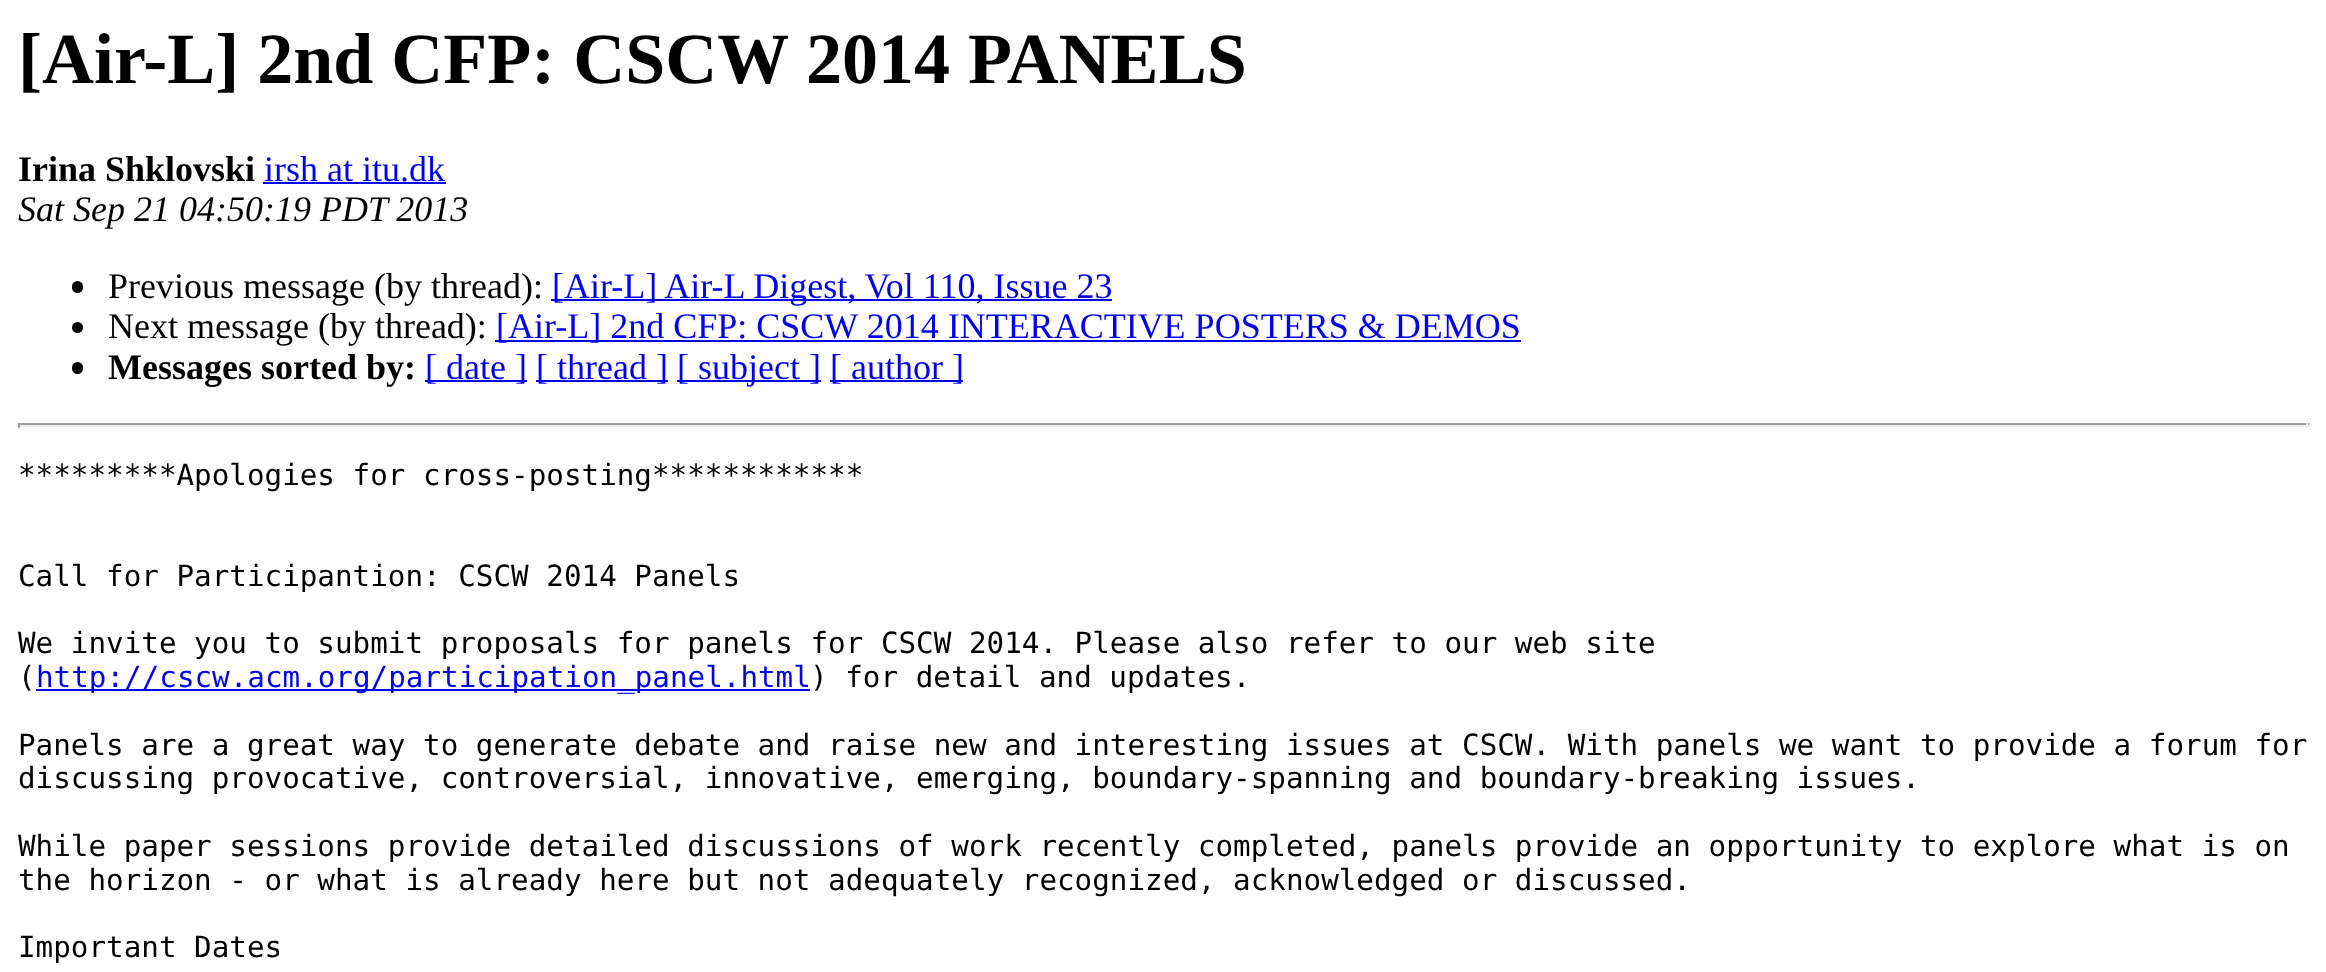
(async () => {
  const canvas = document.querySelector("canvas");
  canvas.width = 2326;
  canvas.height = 972;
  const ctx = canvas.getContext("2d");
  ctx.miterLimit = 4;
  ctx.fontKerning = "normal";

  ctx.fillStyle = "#ffffff";
  ctx.fillRect(0, 0, 2326, 972);
  ctx.fillStyle = "#0000ee";
  ctx.fillRect(263, 182, 183, 2);
  ctx.fillStyle = "#000000";
  ctx.beginPath();
  ctx.roundRect(72, 281, 11, 12, 5.5);
  ctx.fill();
  ctx.fillStyle = "#0000ee";
  ctx.fillRect(551, 299, 561, 2);
  ctx.fillStyle = "#000000";
  ctx.beginPath();
  ctx.arc(77.5, 327.5, 5.5, 0, Math.PI * 2);
  ctx.fill();
  ctx.fillStyle = "#0000ee";
  ctx.fillRect(495, 340, 1026, 2);
  ctx.fillStyle = "#000000";
  ctx.beginPath();
  ctx.roundRect(72, 362, 11, 12, 5.5);
  ctx.fill();
  for (const [x, y, w, h, color] of [
    [425, 380, 102, 2, "#0000ee"],
    [536, 380, 132, 2, "#0000ee"],
    [677, 380, 144, 2, "#0000ee"],
    [830, 380, 133, 2, "#0000ee"],
    [18, 423, 2291, 2, "#9f9f9f"],
    [2306, 423, 2, 5, "#eeeeee"],
    [18, 425, 2291, 2, "#eeeeee"],
    [18, 423, 2, 5, "#9f9f9f"],
    [36, 689, 774, 2, "#0000ee"],
  ]) {
    ctx.fillStyle = color;
    ctx.fillRect(x, y, w, h);
  }
  ctx.font = "bold 72px Liberation Serif";
  ctx.fillStyle = "#000000";
  ctx.fillText("[Air-L] 2nd CFP: CSCW 2014 PANELS", 18, 83);
  ctx.font = "bold 36px Liberation Serif";
  ctx.fillText("Irina Shklovski", 18, 181);
  ctx.font = "36px Liberation Serif";
  ctx.fillStyle = "#0000ee";
  ctx.fillText("irsh at itu.dk", 264, 181);
  ctx.font = "italic 36px Liberation Serif";
  ctx.fillStyle = "#000000";
  ctx.fillText("Sat Sep 21 04:50:19 PDT 2013", 18, 221);
  ctx.font = "36px Liberation Serif";
  ctx.fillText("Previous message (by thread):", 108, 298);
  ctx.fillStyle = "#0000ee";
  ctx.fillText("[Air-L] Air-L Digest, Vol 110, Issue 23", 552, 298);
  ctx.fillStyle = "#000000";
  ctx.fillText("Next message (by thread):", 108, 338);
  ctx.fillStyle = "#0000ee";
  ctx.fillText("[Air-L] 2nd CFP: CSCW 2014 INTERACTIVE POSTERS & DEMOS", 496, 338);
  ctx.font = "bold 36px Liberation Serif";
  ctx.fillStyle = "#000000";
  ctx.fillText("Messages sorted by:", 108, 379);
  ctx.font = "36px Liberation Serif";
  ctx.fillStyle = "#0000ee";
  for (const [text, x, y] of [
    ["[ date ]", 425, 379],
    ["[ thread ]", 536, 379],
    ["[ subject ]", 677, 379],
    ["[ author ]", 830, 379],
  ]) {
    ctx.fillText(text, x, y);
  }
  ctx.font = "29.25px DejaVu Sans Mono";
  ctx.fillStyle = "#000000";
  for (const [text, x, y] of [
    ["*********Apologies for cross-posting************", 18, 485],
    ["Call for Participantion: CSCW 2014 Panels", 18, 586],
    ["We invite you to submit proposals for panels for CSCW 2014. Please also refer to our web site", 18, 653],
    ["(", 18, 687],
  ]) {
    ctx.fillText(text, x, y);
  }
  ctx.fillStyle = "#0000ee";
  ctx.fillText("http://cscw.acm.org/participation_panel.html", 36, 687);
  ctx.fillStyle = "#000000";
  for (const [text, x, y] of [
    [") for detail and updates.", 810, 687],
    ["Panels are a great way to generate debate and raise new and interesting issues at CSCW. With panels we want to provide a forum for", 18, 755],
    ["discussing provocative, controversial, innovative, emerging, boundary-spanning and boundary-breaking issues.", 18, 788],
    ["While paper sessions provide detailed discussions of work recently completed, panels provide an opportunity to explore what is on", 18, 856],
    ["the horizon - or what is already here but not adequately recognized, acknowledged or discussed.", 18, 890],
    ["Important Dates", 18, 957],
  ]) {
    ctx.fillText(text, x, y);
  }
})();
